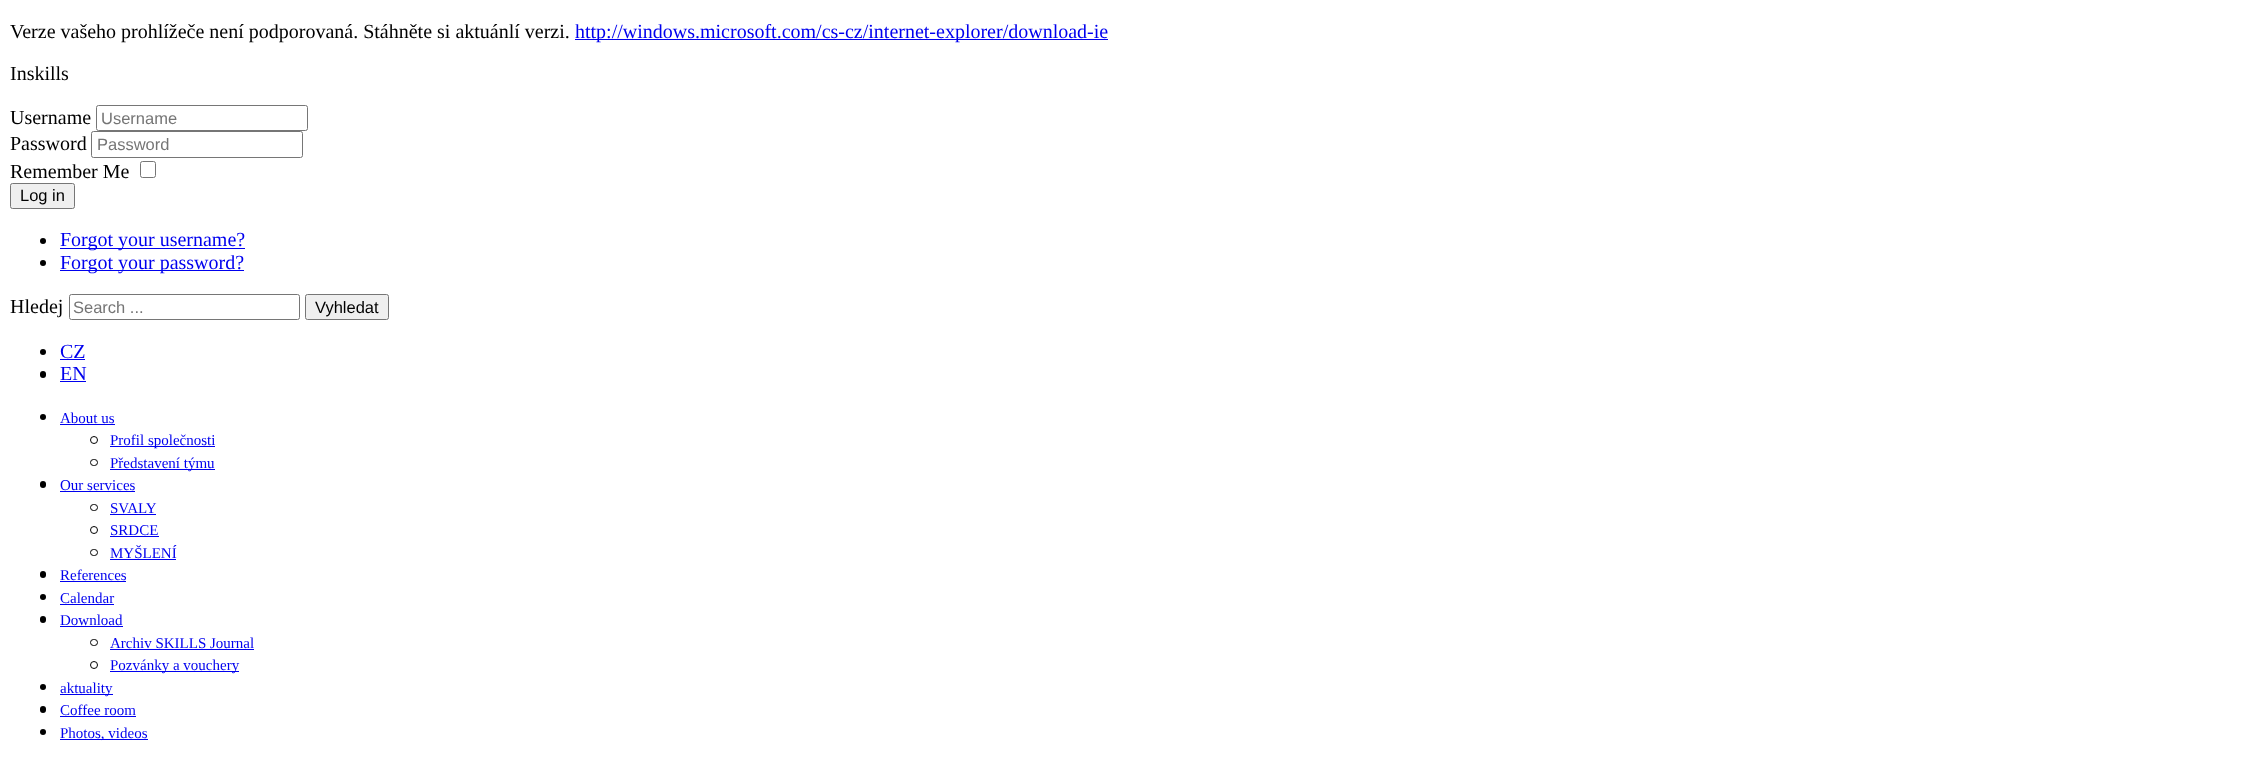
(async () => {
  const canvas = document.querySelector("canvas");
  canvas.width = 2244;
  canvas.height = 762;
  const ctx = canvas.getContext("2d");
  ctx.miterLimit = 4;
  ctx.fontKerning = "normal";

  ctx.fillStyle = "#ffffff";
  ctx.fillRect(0, 0, 2244, 762);
  ctx.fillStyle = "#0000ee";
  ctx.fillRect(575, 39, 533, 1);
  ctx.beginPath();
  ctx.roundRect(96.5, 105.5, 211, 25, 2);
  ctx.strokeStyle = "#767676";
  ctx.stroke();
  ctx.beginPath();
  ctx.roundRect(91.5, 131.5, 211, 26, 2);
  ctx.stroke();
  ctx.beginPath();
  ctx.roundRect(140.5, 161.5, 15, 16, 2);
  ctx.stroke();
  ctx.fillStyle = "#efefef";
  ctx.beginPath();
  ctx.roundRect(10.5, 183.5, 64, 25, 2);
  ctx.fill();
  ctx.stroke();
  ctx.fillStyle = "#000000";
  ctx.beginPath();
  ctx.arc(43, 241, 3, 0, Math.PI * 2);
  ctx.fill();
  ctx.fillStyle = "#0000ee";
  ctx.fillRect(60, 248, 185, 1);
  ctx.fillStyle = "#000000";
  ctx.beginPath();
  ctx.arc(43, 263, 3, 0, Math.PI * 2);
  ctx.fill();
  ctx.fillStyle = "#0000ee";
  ctx.fillRect(60, 270, 184, 1);
  ctx.beginPath();
  ctx.roundRect(69.5, 294.5, 230, 25, 2);
  ctx.stroke();
  ctx.fillStyle = "#efefef";
  ctx.beginPath();
  ctx.roundRect(305.5, 294.5, 83, 25, 2);
  ctx.fill();
  ctx.stroke();
  ctx.fillStyle = "#000000";
  ctx.beginPath();
  ctx.arc(43, 352, 3, 0, Math.PI * 2);
  ctx.fill();
  ctx.fillStyle = "#0000ee";
  ctx.fillRect(60, 359, 25, 1);
  ctx.fillStyle = "#000000";
  ctx.beginPath();
  ctx.roundRect(40, 371, 6, 7, 3);
  ctx.fill();
  ctx.fillStyle = "#0000ee";
  ctx.fillRect(60, 381, 26, 1);
  ctx.fillStyle = "#000000";
  ctx.beginPath();
  ctx.arc(43, 417, 3, 0, Math.PI * 2);
  ctx.fill();
  ctx.fillStyle = "#0000ee";
  ctx.fillRect(60, 424, 55, 1);
  ctx.beginPath();
  ctx.arc(94, 440, 3.5, 0, Math.PI * 2);
  ctx.strokeStyle = "#000000";
  ctx.stroke();
  ctx.fillRect(110, 446, 105, 1);
  ctx.beginPath();
  ctx.roundRect(90.5, 459.5, 7, 6, 3);
  ctx.stroke();
  ctx.fillRect(110, 469, 105, 1);
  ctx.fillStyle = "#000000";
  ctx.beginPath();
  ctx.roundRect(40, 481, 6, 7, 3);
  ctx.fill();
  ctx.fillStyle = "#0000ee";
  ctx.fillRect(60, 491, 75, 1);
  ctx.beginPath();
  ctx.roundRect(90.5, 504.5, 7, 6, 3);
  ctx.stroke();
  ctx.fillRect(110, 514, 46, 1);
  ctx.beginPath();
  ctx.arc(94, 530, 3.5, 0, Math.PI * 2);
  ctx.stroke();
  ctx.fillRect(110, 536, 49, 1);
  ctx.beginPath();
  ctx.roundRect(90.5, 549.5, 7, 6, 3);
  ctx.stroke();
  ctx.fillRect(110, 559, 66, 1);
  ctx.fillStyle = "#000000";
  ctx.beginPath();
  ctx.roundRect(40, 571, 6, 7, 3);
  ctx.fill();
  ctx.fillStyle = "#0000ee";
  ctx.fillRect(60, 581, 66, 1);
  ctx.fillStyle = "#000000";
  ctx.beginPath();
  ctx.arc(43, 597, 3, 0, Math.PI * 2);
  ctx.fill();
  ctx.fillStyle = "#0000ee";
  ctx.fillRect(60, 604, 54, 1);
  ctx.fillStyle = "#000000";
  ctx.beginPath();
  ctx.roundRect(40, 616, 6, 7, 3);
  ctx.fill();
  ctx.fillStyle = "#0000ee";
  ctx.fillRect(60, 626, 63, 1);
  ctx.beginPath();
  ctx.roundRect(90.5, 639.5, 7, 6, 3);
  ctx.stroke();
  ctx.fillRect(110, 649, 144, 1);
  ctx.beginPath();
  ctx.arc(94, 665, 3.5, 0, Math.PI * 2);
  ctx.stroke();
  ctx.fillRect(110, 671, 129, 1);
  ctx.fillStyle = "#000000";
  ctx.beginPath();
  ctx.arc(43, 687, 3, 0, Math.PI * 2);
  ctx.fill();
  ctx.fillStyle = "#0000ee";
  ctx.fillRect(60, 694, 53, 1);
  ctx.fillStyle = "#000000";
  ctx.beginPath();
  ctx.roundRect(40, 706, 6, 7, 3);
  ctx.fill();
  ctx.fillStyle = "#0000ee";
  ctx.fillRect(60, 716, 76, 1);
  ctx.fillStyle = "#000000";
  ctx.beginPath();
  ctx.arc(43, 732, 3, 0, Math.PI * 2);
  ctx.fill();
  ctx.fillStyle = "#0000ee";
  ctx.fillRect(60, 739, 88, 1);
  ctx.font = "20px Liberation Serif";
  ctx.fillStyle = "#000000";
  ctx.fillText("Verze vašeho prohlížeče není podporovaná. Stáhněte si aktuánlí verzi.", 10, 38);
  ctx.fillStyle = "#0000ee";
  ctx.fillText("http://windows.microsoft.com/cs-cz/internet-explorer/download-ie", 575, 38);
  ctx.fillStyle = "#000000";
  ctx.fillText("Inskills", 10, 80);
  ctx.fillText("Username", 10, 124);
  ctx.font = "16.5px Liberation Sans";
  ctx.fillStyle = "#757575";
  ctx.fillText("Username", 101, 124);
  ctx.font = "20px Liberation Serif";
  ctx.fillStyle = "#000000";
  ctx.fillText("Password", 10, 150);
  ctx.font = "16.5px Liberation Sans";
  ctx.fillStyle = "#757575";
  ctx.fillText("Password", 97, 150);
  ctx.font = "20px Liberation Serif";
  ctx.fillStyle = "#000000";
  ctx.fillText("Remember Me", 10, 178);
  ctx.font = "16.5px Liberation Sans";
  ctx.fillText("Log in", 20, 201);
  ctx.font = "20px Liberation Serif";
  ctx.fillStyle = "#0000ee";
  ctx.fillText("Forgot your username?", 60, 246);
  ctx.fillText("Forgot your password?", 60, 269);
  ctx.fillStyle = "#000000";
  ctx.fillText("Hledej", 10, 313);
  ctx.font = "16.5px Liberation Sans";
  ctx.fillStyle = "#757575";
  ctx.fillText("Search ...", 73, 313);
  ctx.fillStyle = "#000000";
  ctx.fillText("Vyhledat", 315, 313);
  ctx.font = "20px Liberation Serif";
  ctx.fillStyle = "#0000ee";
  ctx.fillText("CZ", 60, 358);
  ctx.fillText("EN", 60, 380);
  ctx.font = "15px Liberation Serif";
  for (const [text, x, y] of [
    ["About us", 60, 423],
    ["Profil společnosti", 110, 445],
    ["Představení týmu", 110, 468],
    ["Our services", 60, 490],
    ["SVALY", 110, 513],
    ["SRDCE", 110, 535],
    ["MYŠLENÍ", 110, 558],
    ["References", 60, 580],
    ["Calendar", 60, 603],
    ["Download", 60, 625],
    ["Archiv SKILLS Journal", 110, 648],
    ["Pozvánky a vouchery", 110, 670],
    ["aktuality", 60, 693],
    ["Coffee room", 60, 715],
    ["Photos, videos", 60, 738],
  ]) {
    ctx.fillText(text, x, y);
  }
})();
